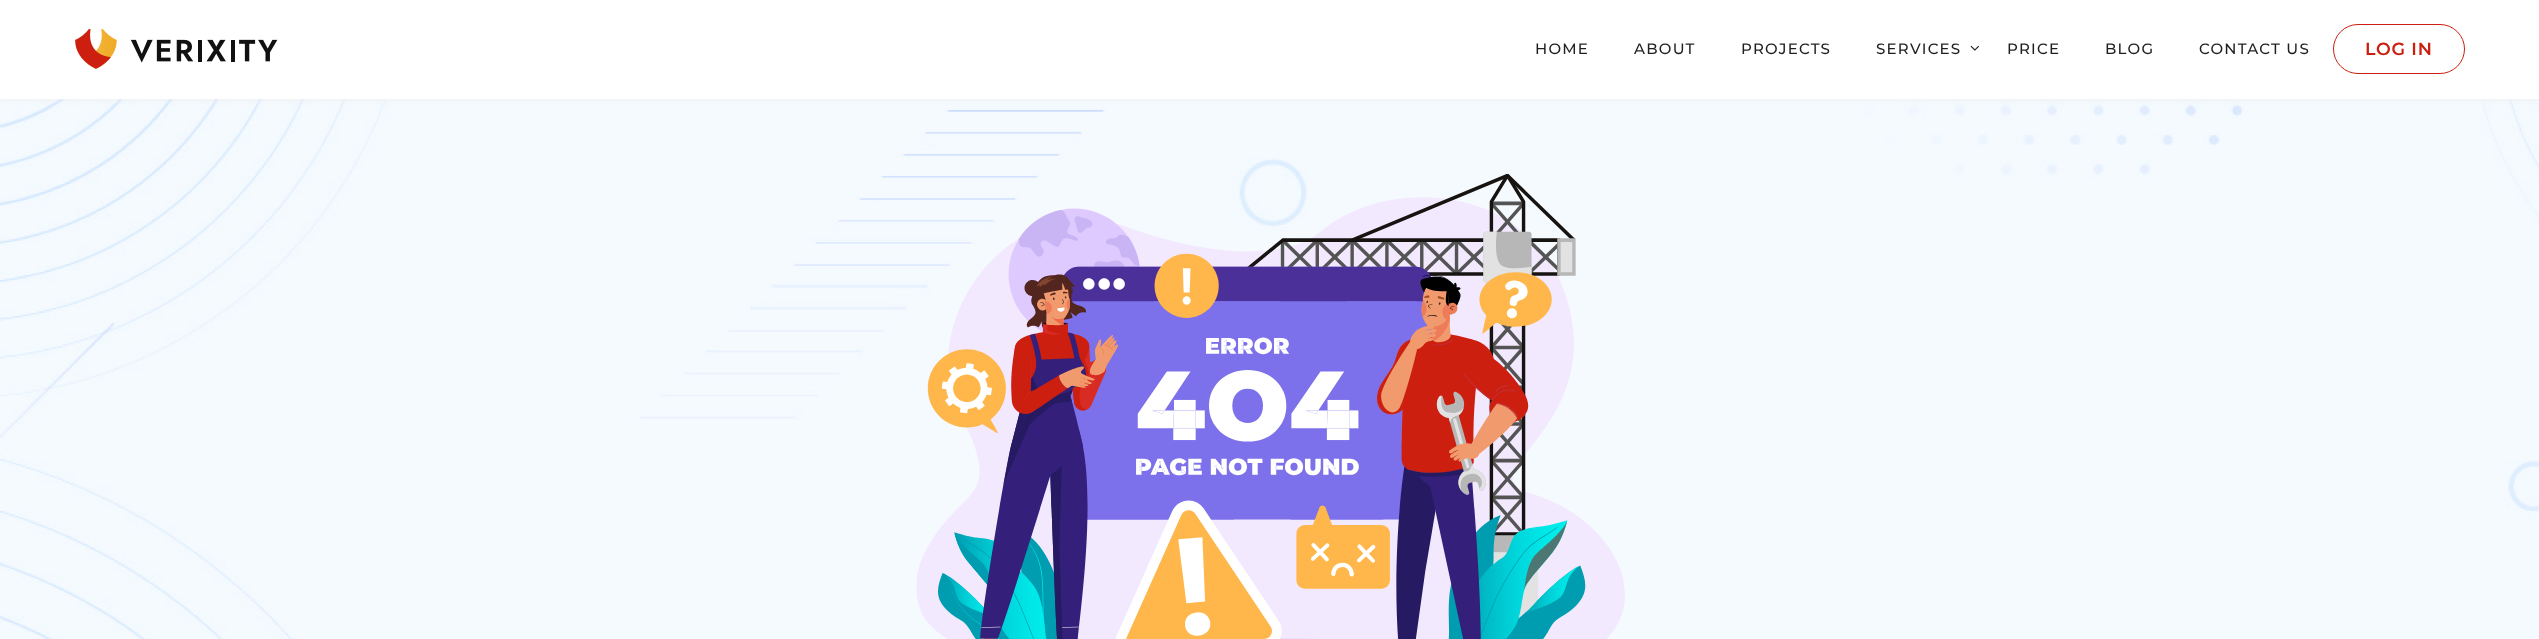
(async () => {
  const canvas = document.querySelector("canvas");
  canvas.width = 2539;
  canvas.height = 639;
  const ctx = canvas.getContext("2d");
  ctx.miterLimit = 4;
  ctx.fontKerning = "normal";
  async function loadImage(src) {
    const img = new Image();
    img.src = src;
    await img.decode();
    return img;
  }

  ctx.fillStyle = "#ffffff";
  ctx.fillRect(0, 0, 2539, 639);
  ctx.drawImage(await loadImage("img/3.png"), 0, 99, 2539, 540);
  ctx.fillStyle = "#eeeeee";
  ctx.filter = "blur(3px)";
  ctx.beginPath();
  ctx.rect(0, 0, 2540, 99);
  ctx.fill();
  ctx.filter = "none";
  ctx.fillStyle = "#ffffff";
  ctx.fillRect(0, 0, 2539, 99);
  ctx.drawImage(await loadImage("img/1.png"), 75, 29, 203, 40);
  ctx.drawImage(await loadImage("img/2.png"), 1970, 45, 9, 6);
  ctx.beginPath();
  ctx.roundRect(2333.5, 24.5, 131, 49, 24.5);
  ctx.strokeStyle = "#cc1f0f";
  ctx.stroke();
  ctx.drawImage(await loadImage("img/4.png"), 916, 174, 709, 465);
  ctx.letterSpacing = "1.25px";
  ctx.font = "500 15px Montserrat";
  ctx.fillStyle = "#1f1f1f";
  for (const [text, x, y] of [
    ["HOME", 1535, 54],
    ["ABOUT", 1634, 54],
    ["PROJECTS", 1741, 54],
    ["SERVICES", 1876, 54],
    ["PRICE", 2007, 54],
    ["BLOG", 2105, 54],
    ["CONTACT US", 2199, 54],
  ]) {
    ctx.fillText(text, x, y);
  }
  ctx.letterSpacing = "0.75px";
  ctx.font = "600 17.5px Montserrat";
  ctx.fillStyle = "#cc1f0f";
  ctx.fillText("LOG IN", 2365, 55);
})();
